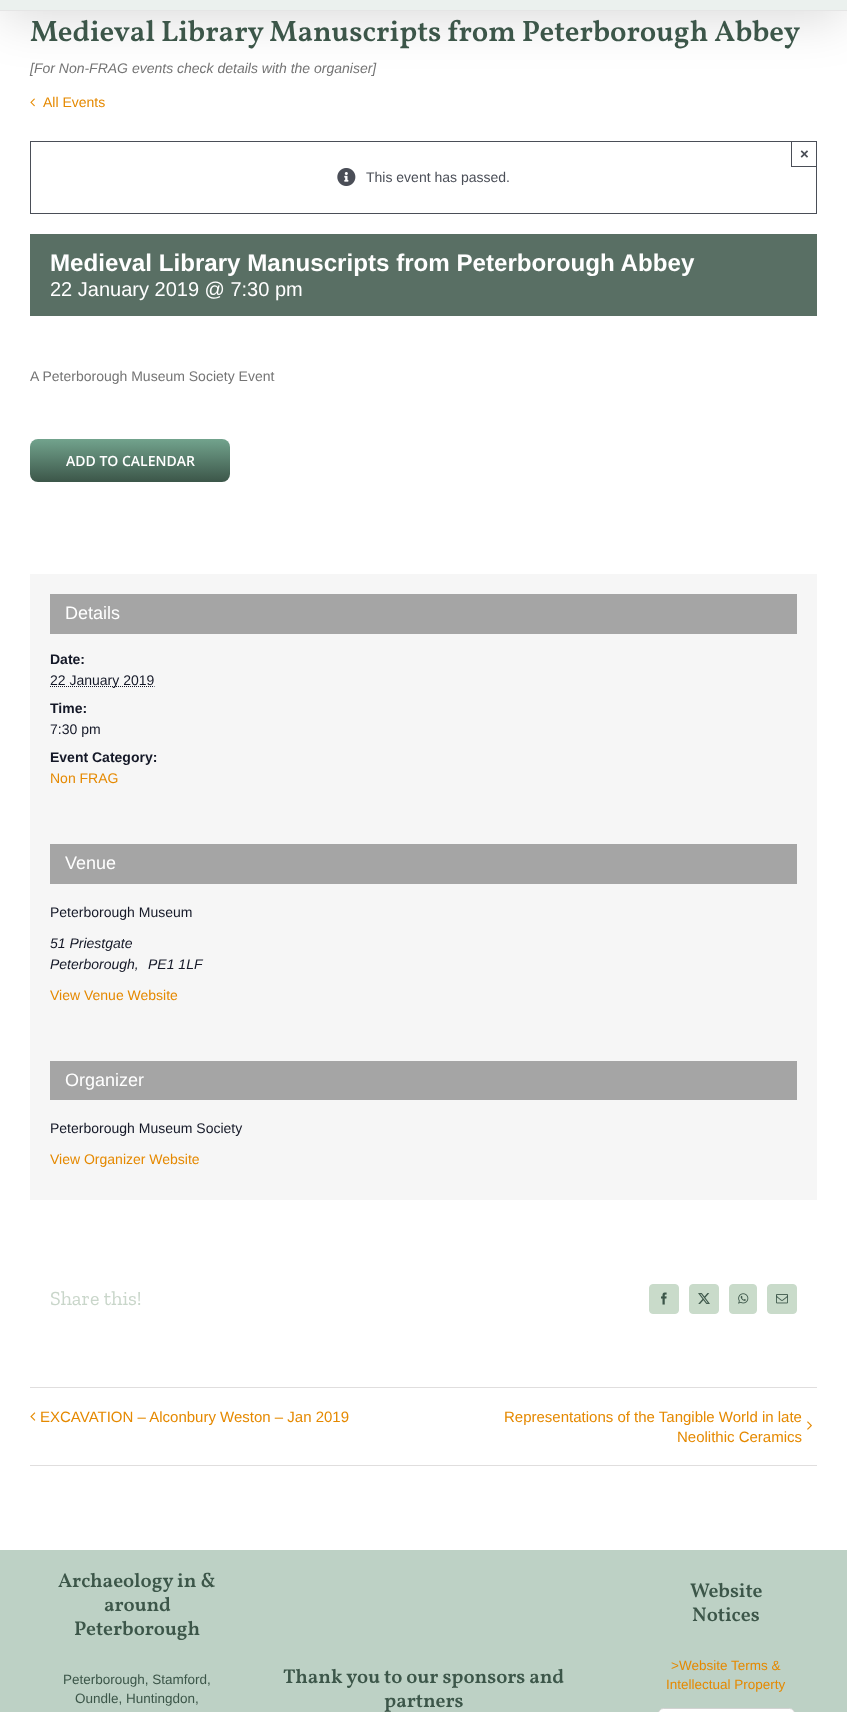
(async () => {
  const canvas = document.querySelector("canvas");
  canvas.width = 847;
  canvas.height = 1712;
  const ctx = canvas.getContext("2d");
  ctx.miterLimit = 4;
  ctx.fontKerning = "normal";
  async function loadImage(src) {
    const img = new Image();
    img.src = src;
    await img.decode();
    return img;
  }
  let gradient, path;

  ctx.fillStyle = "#ffffff";
  ctx.fillRect(0, 0, 847, 1712);
  ctx.fillStyle = "rgba(0, 0, 0, 0.14)";
  ctx.filter = "blur(25px)";
  ctx.beginPath();
  ctx.rect(2, -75, 843, 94);
  ctx.fill();
  ctx.filter = "none";
  ctx.fillStyle = "#ebf1ee";
  ctx.fillRect(0, 0, 847, 10);
  ctx.fillStyle = "#e5e5e5";
  ctx.fillRect(0, 10, 847, 1);
  ctx.drawImage(await loadImage("img/1.png"), 30, 98, 5, 9);
  ctx.strokeStyle = "#4a4e57";
  ctx.strokeRect(30.5, 141.5, 786, 72);
  ctx.fillStyle = "#4a4e57";
  ctx.fillRect(791, 166, 26, 1);
  ctx.fillRect(791, 141, 1, 26);
  ctx.drawImage(await loadImage("img/2.png"), 337, 168, 19, 18);
  ctx.fillStyle = "#596f64";
  ctx.fillRect(30, 234, 787, 82);
  gradient = ctx.createLinearGradient(130, 439, 130, 482);
  gradient.addColorStop(0, "#72a38d");
  gradient.addColorStop(1, "#3c5649");
  ctx.fillStyle = gradient;
  ctx.beginPath();
  ctx.roundRect(30, 439, 200, 43, 8);
  ctx.fill();
  ctx.fillStyle = "#f6f6f6";
  ctx.fillRect(30, 574, 787, 626);
  ctx.fillStyle = "#a5a5a5";
  ctx.fillRect(50, 594, 747, 40);
  path = new Path2D("M50 686.5H154.5");
  ctx.strokeStyle = "#141827";
  ctx.setLineDash([1, 1]);
  ctx.stroke(path);
  ctx.fillRect(50, 844, 747, 40);
  ctx.fillRect(50, 1061, 747, 39);
  ctx.fillStyle = "#c9dbca";
  ctx.beginPath();
  ctx.roundRect(649.5, 1284.5, 29, 29, 3.5);
  ctx.fill();
  ctx.strokeStyle = "#c9dbca";
  ctx.setLineDash([]);
  ctx.stroke();
  ctx.drawImage(await loadImage("img/3.png"), 661, 1292, 6, 13);
  ctx.beginPath();
  ctx.roundRect(689.5, 1284.5, 29, 29, 3.5);
  ctx.fill();
  ctx.stroke();
  ctx.drawImage(await loadImage("img/4.png"), 698, 1293, 12, 11);
  ctx.beginPath();
  ctx.roundRect(729.5, 1284.5, 27, 29, 3.5);
  ctx.fill();
  ctx.stroke();
  ctx.drawImage(await loadImage("img/5.png"), 738, 1293, 11, 11);
  ctx.beginPath();
  ctx.roundRect(767.5, 1284.5, 29, 29, 3.5);
  ctx.fill();
  ctx.stroke();
  ctx.drawImage(await loadImage("img/6.png"), 776, 1294, 12, 10);
  ctx.fillStyle = "#e0dede";
  ctx.fillRect(30, 1387, 787, 1);
  ctx.fillRect(30, 1465, 787, 1);
  ctx.drawImage(await loadImage("img/7.png"), 30, 1412, 6, 9);
  ctx.drawImage(await loadImage("img/8.png"), 807, 1421, 5, 9);
  ctx.fillStyle = "#bdd1c5";
  ctx.fillRect(0, 1550, 847, 162);
  ctx.fillStyle = "#ffffff";
  ctx.beginPath();
  ctx.roundRect(658.5, 1708.5, 136, 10, 5.5);
  ctx.fill();
  ctx.strokeStyle = "#d2d2d2";
  ctx.stroke();
  ctx.font = "600 29.6px Vollkorn";
  ctx.fillStyle = "#3c5649";
  ctx.fillText("Medieval Library Manuscripts from Peterborough Abbey", 30, 41);
  ctx.font = "italic 14px Liberation Sans";
  ctx.fillStyle = "#747474";
  ctx.fillText("[For Non-FRAG events check details with the organiser]", 30, 73);
  ctx.font = "14px Liberation Sans";
  ctx.fillStyle = "#e58900";
  ctx.fillText("All Events", 43, 107);
  ctx.font = "bold 15px Liberation Sans";
  ctx.fillStyle = "#4a4e57";
  ctx.fillText("×", 800, 159);
  ctx.font = "14px Liberation Sans";
  ctx.fillText("This event has passed.", 366, 182);
  ctx.font = "bold 24.15px Liberation Sans";
  ctx.fillStyle = "#ffffff";
  ctx.fillText("Medieval Library Manuscripts from Peterborough Abbey", 50, 271);
  ctx.font = "20px Liberation Sans";
  ctx.fillText("22 January 2019 @ 7:30 pm", 50, 296);
  ctx.font = "14px Liberation Sans";
  ctx.fillStyle = "#747474";
  ctx.fillText("A Peterborough Museum Society Event", 30, 381);
  ctx.font = "600 14px Open Sans";
  ctx.fillStyle = "#ffffff";
  ctx.fillText("ADD TO CALENDAR", 66, 466);
  ctx.font = "18px Liberation Sans";
  ctx.fillText("Details", 65, 619);
  ctx.font = "bold 14px Liberation Sans";
  ctx.fillStyle = "#141827";
  ctx.fillText("Date:", 50, 664);
  ctx.font = "14px Liberation Sans";
  ctx.fillText("22 January 2019", 50, 685);
  ctx.font = "bold 14px Liberation Sans";
  ctx.fillText("Time:", 50, 713);
  ctx.font = "14px Liberation Sans";
  ctx.fillText("7:30 pm", 50, 734);
  ctx.font = "bold 14px Liberation Sans";
  ctx.fillText("Event Category:", 50, 762);
  ctx.font = "14px Liberation Sans";
  ctx.fillStyle = "#e58900";
  ctx.fillText("Non FRAG", 50, 783);
  ctx.font = "18px Liberation Sans";
  ctx.fillStyle = "#ffffff";
  ctx.fillText("Venue", 65, 869);
  ctx.font = "14px Liberation Sans";
  ctx.fillStyle = "#141827";
  ctx.fillText("Peterborough Museum", 50, 917);
  ctx.font = "italic 14px Liberation Sans";
  for (const [text, x, y] of [
    ["51 Priestgate", 50, 948],
    ["Peterborough,", 50, 969],
    ["PE1 1LF", 148, 969],
  ]) {
    ctx.fillText(text, x, y);
  }
  ctx.font = "14px Liberation Sans";
  ctx.fillStyle = "#e58900";
  ctx.fillText("View Venue Website", 50, 1000);
  ctx.font = "18px Liberation Sans";
  ctx.fillStyle = "#ffffff";
  ctx.fillText("Organizer", 65, 1086);
  ctx.font = "14px Liberation Sans";
  ctx.fillStyle = "#141827";
  ctx.fillText("Peterborough Museum Society", 50, 1133);
  ctx.fillStyle = "#e58900";
  ctx.fillText("View Organizer Website", 50, 1164);
  ctx.font = "20px Zilla Slab";
  ctx.fillStyle = "#c9d6ca";
  ctx.fillText("Share this!", 50, 1305);
  ctx.font = "15px Liberation Sans";
  ctx.fillStyle = "#e58900";
  for (const [text, x, y] of [
    ["EXCAVATION – Alconbury Weston – Jan 2019", 40, 1422],
    ["Representations of the Tangible World in late", 504, 1422],
    ["Neolithic Ceramics", 677, 1442],
  ]) {
    ctx.fillText(text, x, y);
  }
  ctx.font = "600 20px Vollkorn";
  ctx.fillStyle = "#3c5649";
  for (const [text, x, y] of [
    ["Archaeology in &", 58, 1587],
    ["around", 104, 1611],
    ["Peterborough", 74, 1635],
  ]) {
    ctx.fillText(text, x, y);
  }
  ctx.font = "13.5px Liberation Sans";
  ctx.fillText("Peterborough, Stamford,", 63, 1684);
  ctx.fillText("Oundle, Huntingdon,", 75, 1703);
  ctx.font = "600 20px Vollkorn";
  for (const [text, x, y] of [
    ["Thank you to our sponsors and", 283, 1683],
    ["partners", 384, 1707],
    ["Website", 690, 1597],
    ["Notices", 692, 1621],
  ]) {
    ctx.fillText(text, x, y);
  }
  ctx.font = "13.5px Liberation Sans";
  ctx.fillStyle = "#e58900";
  ctx.fillText(">Website Terms &", 671, 1670);
  ctx.fillText("Intellectual Property", 666, 1689);
})();
